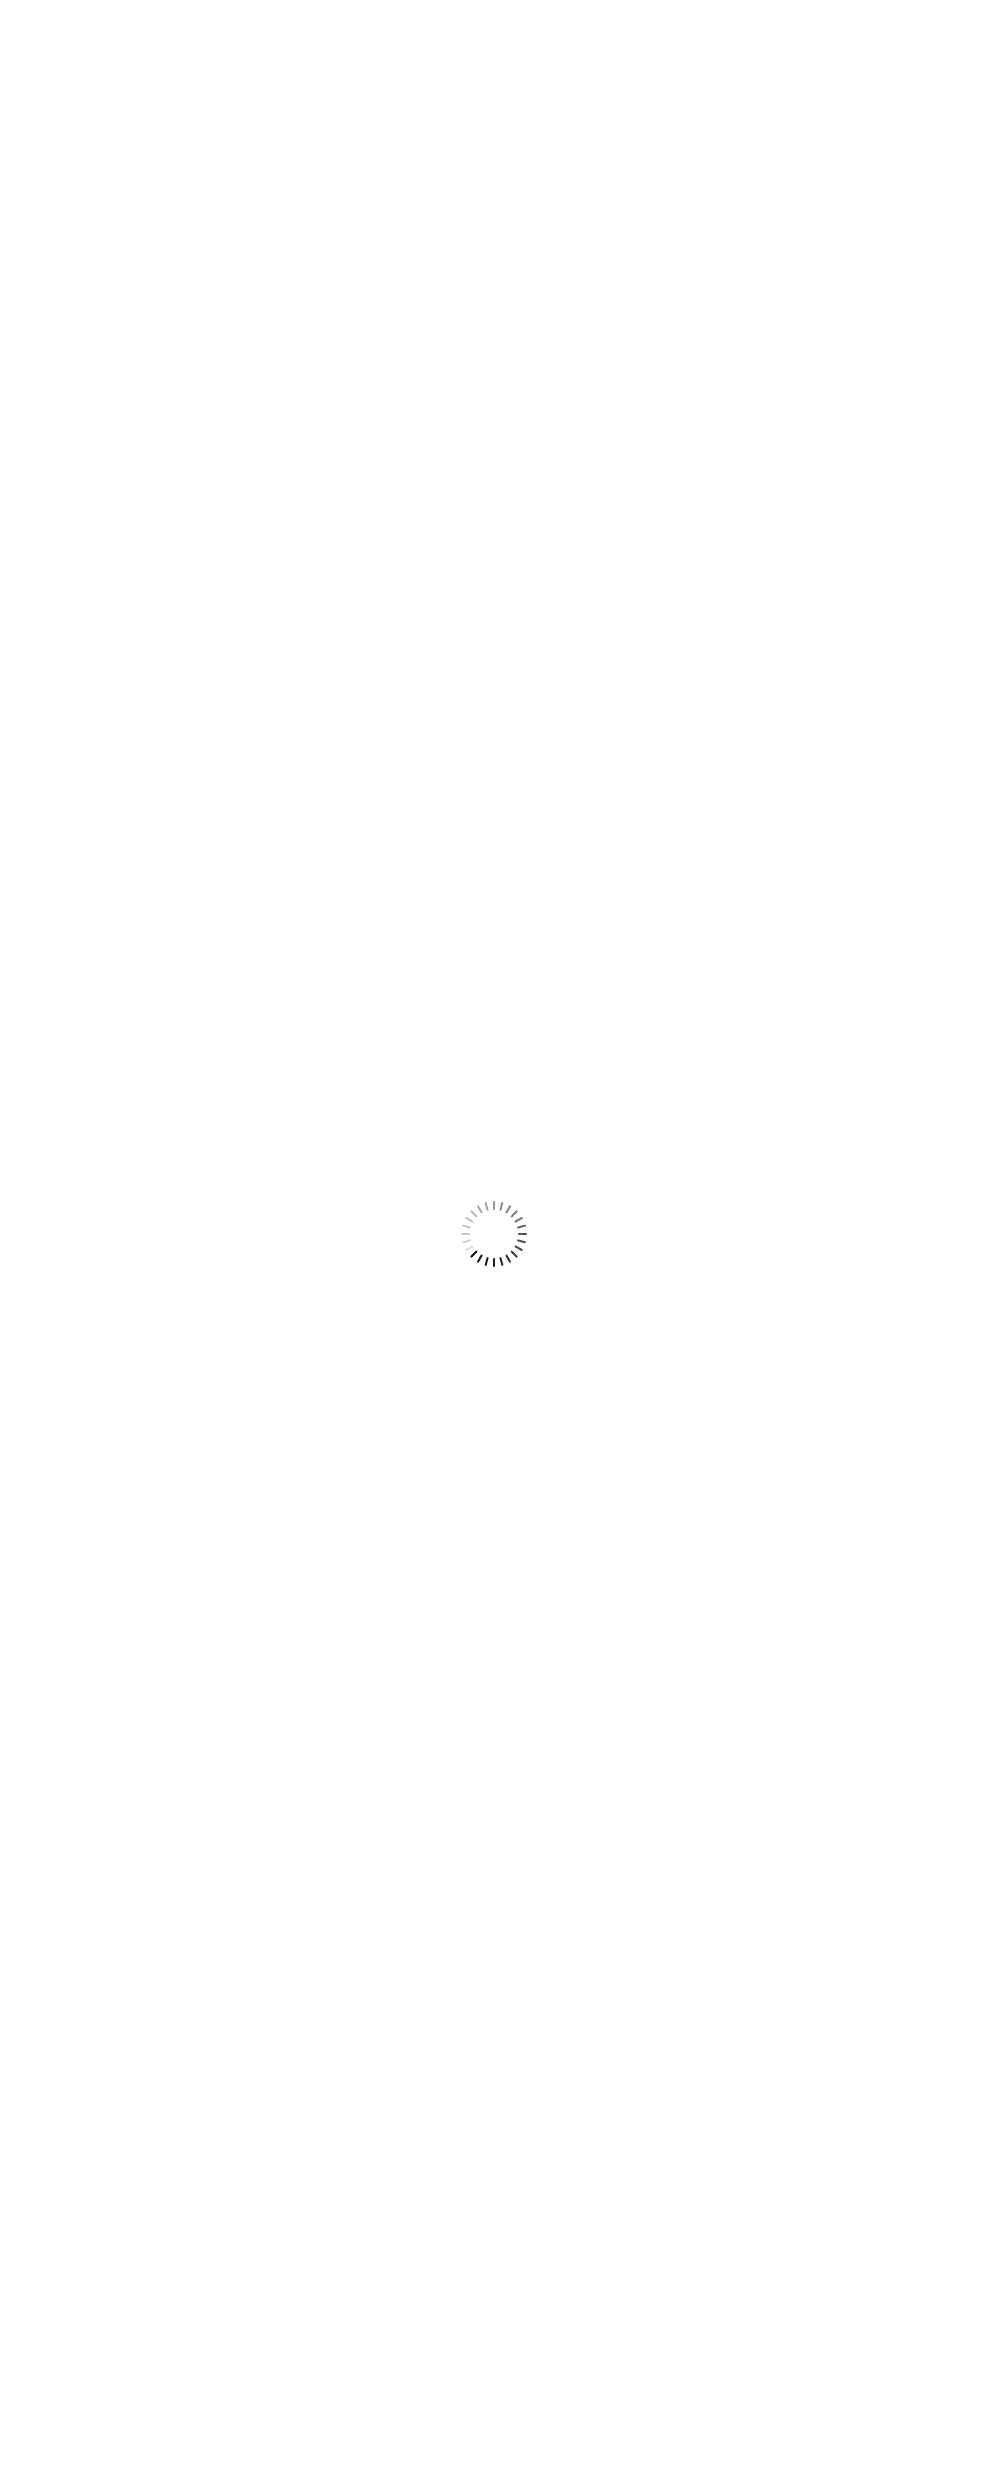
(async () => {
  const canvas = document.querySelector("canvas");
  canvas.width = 987;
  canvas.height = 2468;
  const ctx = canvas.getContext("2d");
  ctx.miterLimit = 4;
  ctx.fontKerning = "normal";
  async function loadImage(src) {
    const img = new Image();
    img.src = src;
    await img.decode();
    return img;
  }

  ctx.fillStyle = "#ffffff";
  ctx.fillRect(0, 0, 987, 2468);
  ctx.drawImage(await loadImage("img/1.png"), 461, 1201, 66, 66);
})();
